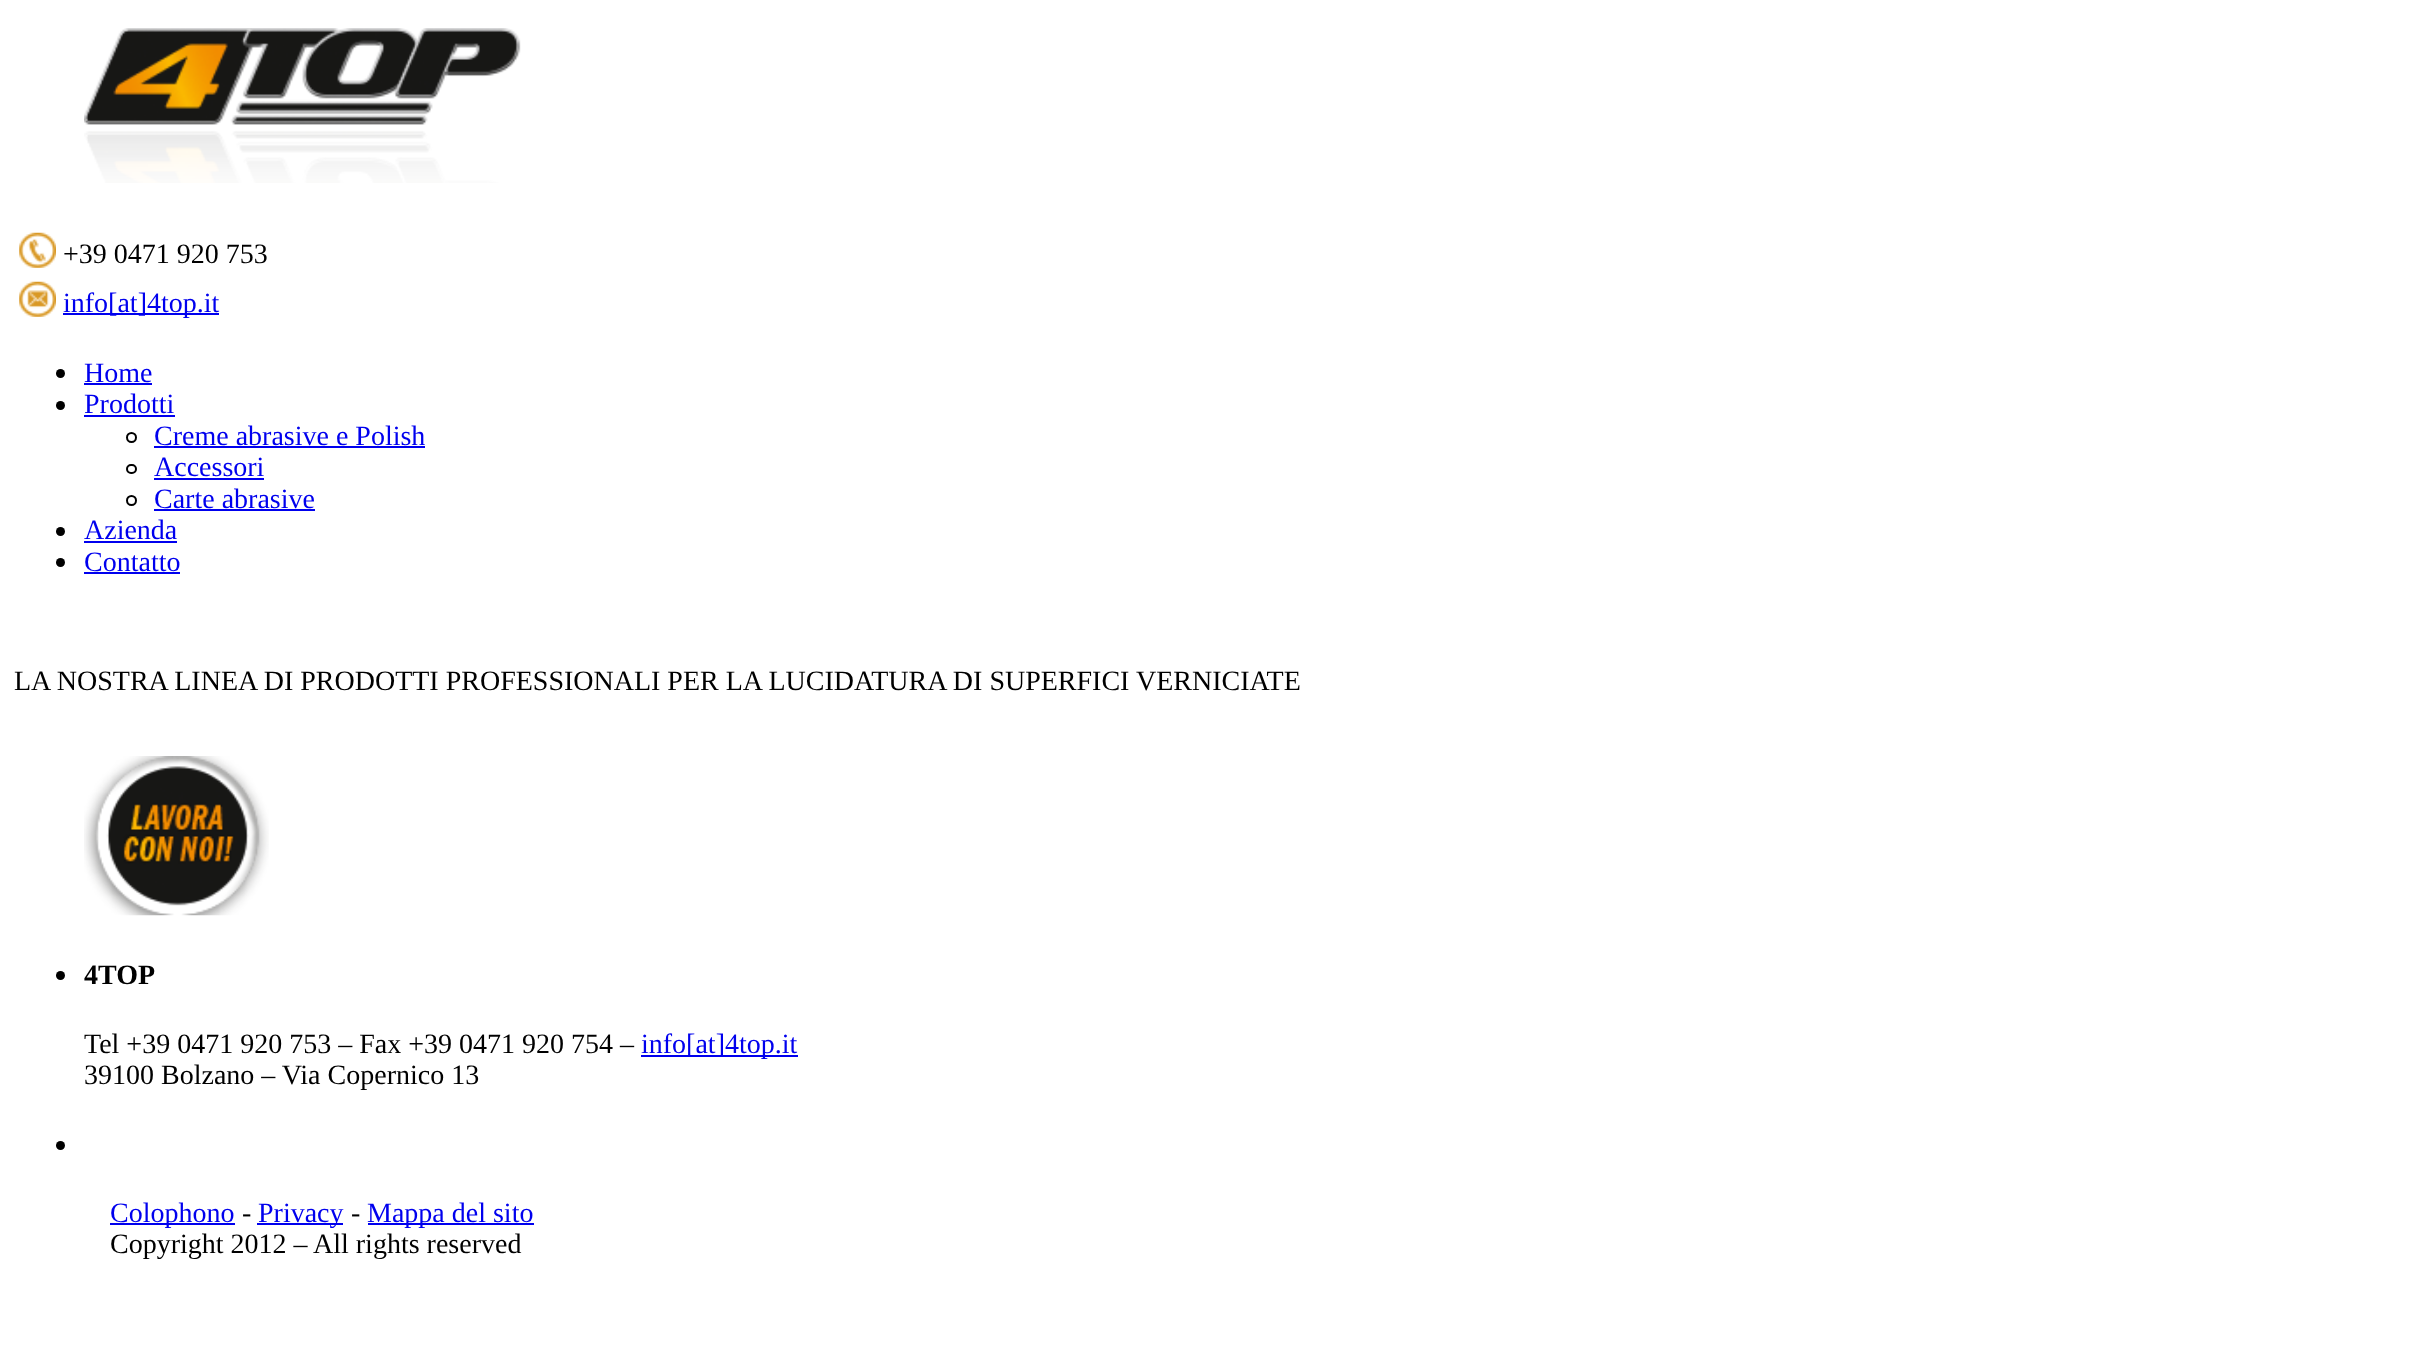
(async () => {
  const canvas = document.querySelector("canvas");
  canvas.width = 2427;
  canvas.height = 1349;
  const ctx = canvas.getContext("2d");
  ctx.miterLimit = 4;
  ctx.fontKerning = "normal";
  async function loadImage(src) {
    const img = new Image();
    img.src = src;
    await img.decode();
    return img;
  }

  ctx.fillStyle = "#ffffff";
  ctx.fillRect(0, 0, 2427, 1349);
  ctx.drawImage(await loadImage("img/1.png"), 84, 28, 437, 155);
  ctx.drawImage(await loadImage("img/2.png"), 19, 232, 37, 36);
  ctx.drawImage(await loadImage("img/3.png"), 19, 281, 37, 36);
  ctx.fillStyle = "#0000ee";
  ctx.fillRect(63, 313, 156, 2);
  ctx.fillStyle = "#000000";
  ctx.beginPath();
  ctx.arc(60.5, 373.5, 4.5, 0, Math.PI * 2);
  ctx.fill();
  ctx.fillStyle = "#0000ee";
  ctx.fillRect(84, 383, 68, 2);
  ctx.fillStyle = "#000000";
  ctx.beginPath();
  ctx.arc(60.5, 405.5, 4.5, 0, Math.PI * 2);
  ctx.fill();
  ctx.fillStyle = "#0000ee";
  ctx.fillRect(84, 415, 91, 2);
  ctx.beginPath();
  ctx.arc(131.5, 437.5, 4.5, 0, Math.PI * 2);
  ctx.strokeStyle = "#000000";
  ctx.lineWidth = 2;
  ctx.stroke();
  ctx.fillRect(154, 446, 271, 2);
  ctx.beginPath();
  ctx.roundRect(127, 465, 9, 8, 4);
  ctx.stroke();
  ctx.fillRect(154, 478, 110, 2);
  ctx.beginPath();
  ctx.arc(131.5, 500.5, 4.5, 0, Math.PI * 2);
  ctx.stroke();
  ctx.fillRect(154, 509, 161, 2);
  ctx.fillStyle = "#000000";
  ctx.beginPath();
  ctx.arc(60.5, 531.5, 4.5, 0, Math.PI * 2);
  ctx.fill();
  ctx.fillStyle = "#0000ee";
  ctx.fillRect(84, 541, 93, 2);
  ctx.fillStyle = "#000000";
  ctx.beginPath();
  ctx.arc(60.5, 562.5, 4.5, 0, Math.PI * 2);
  ctx.fill();
  ctx.fillStyle = "#0000ee";
  ctx.fillRect(84, 572, 96, 2);
  ctx.drawImage(await loadImage("img/4.png"), 84, 756, 185, 160);
  ctx.fillStyle = "#000000";
  ctx.beginPath();
  ctx.arc(60.5, 975.5, 4.5, 0, Math.PI * 2);
  ctx.fill();
  ctx.fillStyle = "#0000ee";
  ctx.fillRect(641, 1055, 157, 2);
  ctx.fillStyle = "#000000";
  ctx.beginPath();
  ctx.arc(60.5, 1145.5, 4.5, 0, Math.PI * 2);
  ctx.fill();
  for (const [x, y, w, h, color] of [
    [110, 1223, 125, 2, "#0000ee"],
    [257, 1223, 86, 2, "#0000ee"],
    [368, 1223, 166, 2, "#0000ee"],
  ]) {
    ctx.fillStyle = color;
    ctx.fillRect(x, y, w, h);
  }
  ctx.font = "28px Liberation Serif";
  ctx.fillStyle = "#000000";
  ctx.fillText("+39 0471 920 753", 63, 263);
  ctx.fillStyle = "#0000ee";
  for (const [text, x, y] of [
    ["info[at]4top.it", 63, 312],
    ["Home", 84, 382],
    ["Prodotti", 84, 413],
    ["Creme abrasive e Polish", 154, 445],
    ["Accessori", 154, 476],
    ["Carte abrasive", 154, 508],
    ["Azienda", 84, 539],
    ["Contatto", 84, 571],
  ]) {
    ctx.fillText(text, x, y);
  }
  ctx.fillStyle = "#000000";
  ctx.fillText("LA NOSTRA LINEA DI PRODOTTI PROFESSIONALI PER LA LUCIDATURA DI SUPERFICI VERNICIATE", 14, 690);
  ctx.font = "bold 28px Liberation Serif";
  ctx.fillText("4TOP", 84, 984);
  ctx.font = "28px Liberation Serif";
  ctx.fillText("Tel +39 0471 920 753 – Fax +39 0471 920 754 –", 84, 1053);
  ctx.fillStyle = "#0000ee";
  ctx.fillText("info[at]4top.it", 641, 1053);
  ctx.fillStyle = "#000000";
  ctx.fillText("39100 Bolzano – Via Copernico 13", 84, 1084);
  ctx.fillStyle = "#0000ee";
  ctx.fillText("Colophono", 110, 1222);
  ctx.fillStyle = "#000000";
  ctx.fillText("-", 242, 1222);
  ctx.fillStyle = "#0000ee";
  ctx.fillText("Privacy", 258, 1222);
  ctx.fillStyle = "#000000";
  ctx.fillText("-", 351, 1222);
  ctx.fillStyle = "#0000ee";
  ctx.fillText("Mappa del sito", 367, 1222);
  ctx.fillStyle = "#000000";
  ctx.fillText("Copyright 2012 – All rights reserved", 110, 1253);
})();
